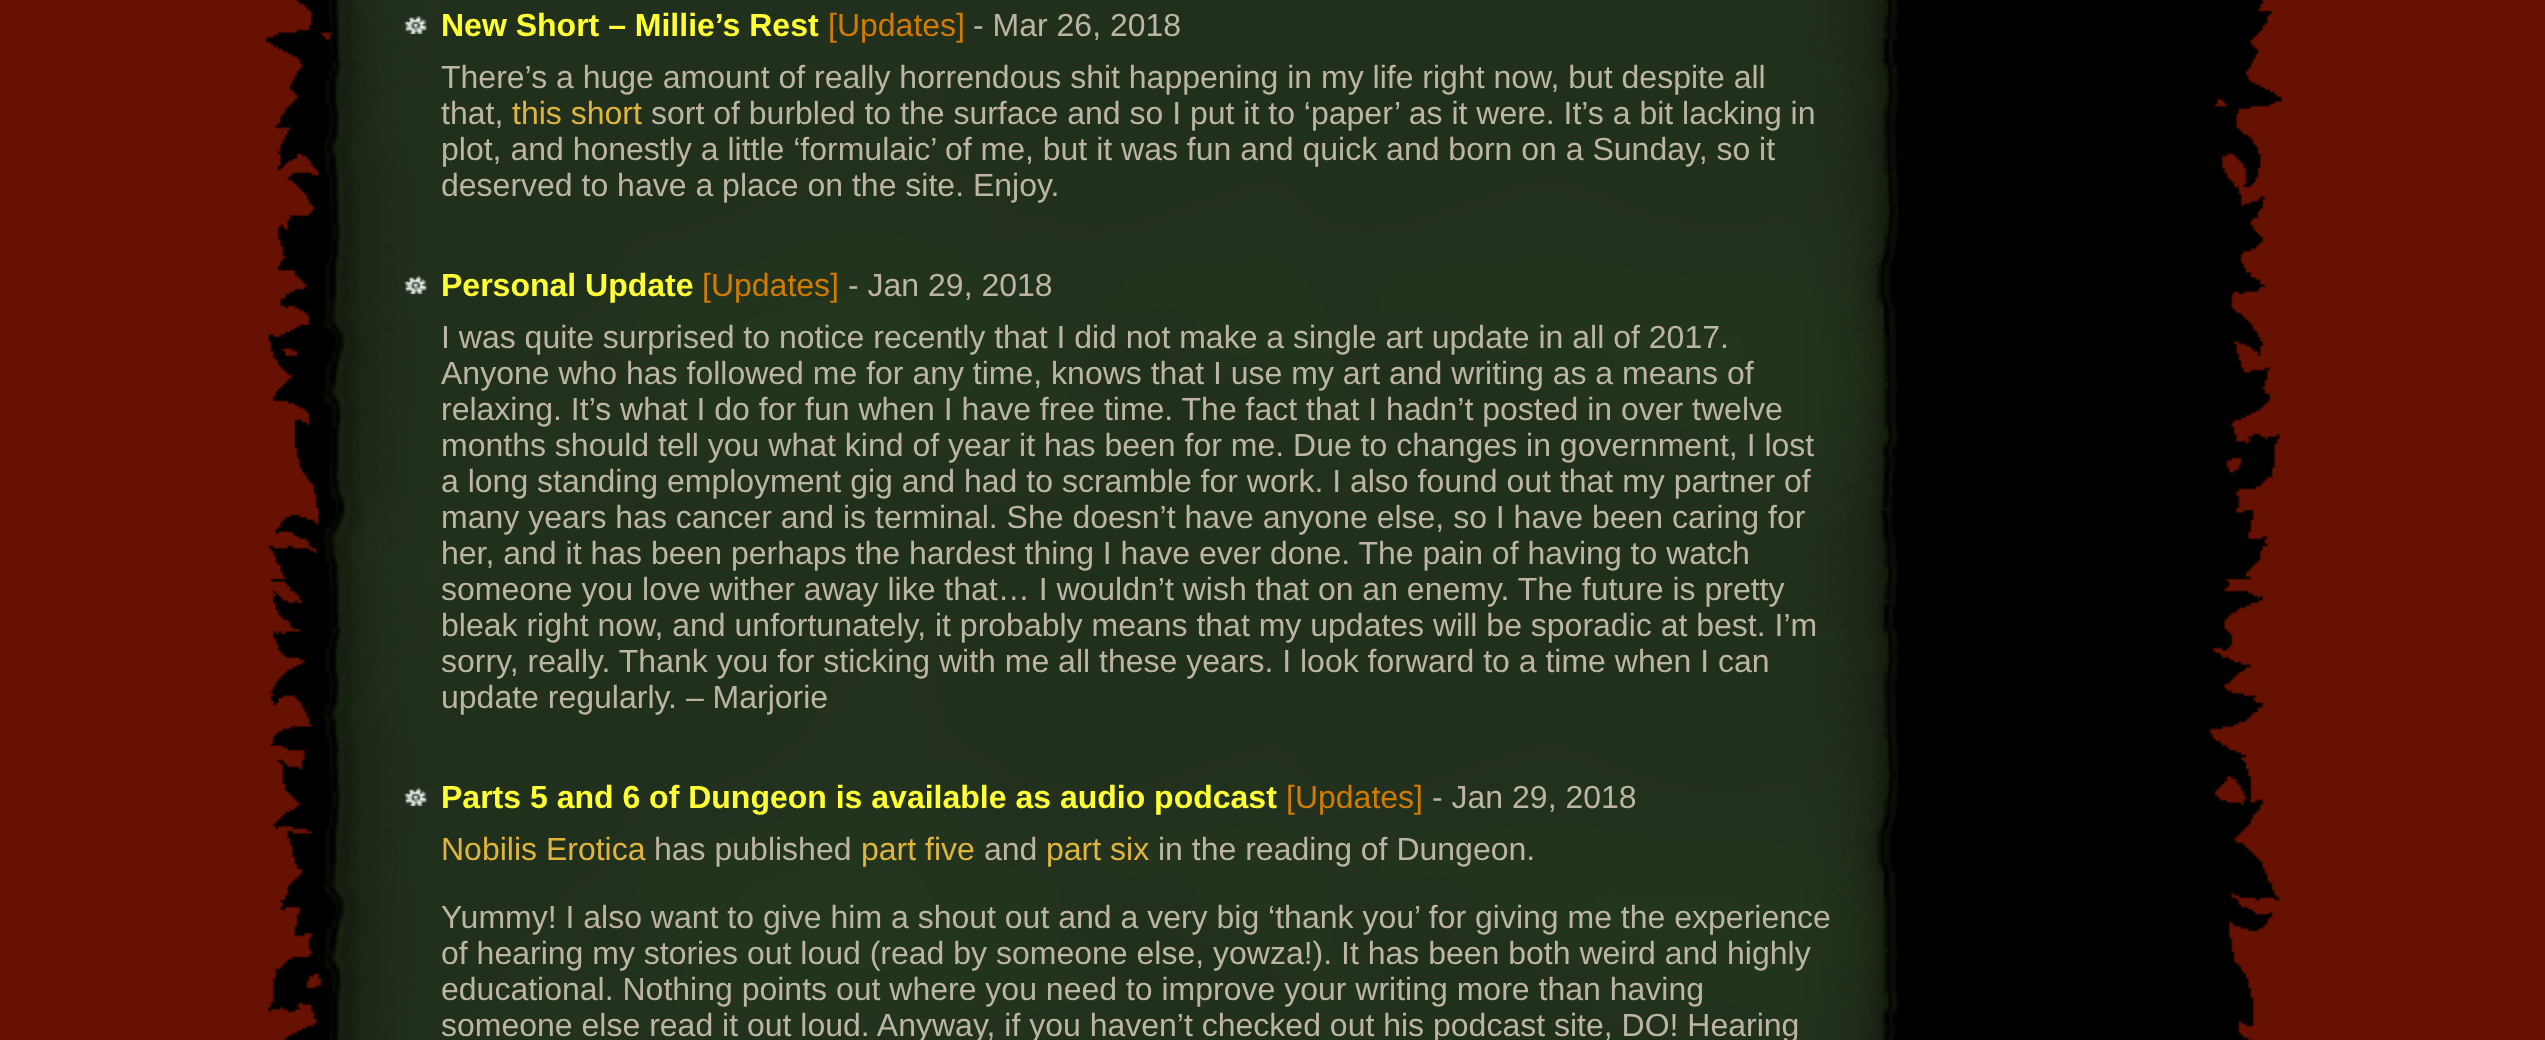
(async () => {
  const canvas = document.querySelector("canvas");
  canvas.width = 2545;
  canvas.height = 1040;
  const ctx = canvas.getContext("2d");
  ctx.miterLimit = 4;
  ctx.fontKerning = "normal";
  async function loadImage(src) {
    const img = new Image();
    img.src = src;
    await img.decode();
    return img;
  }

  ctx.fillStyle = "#661101";
  ctx.fillRect(0, 0, 2545, 1040);
  ctx.drawImage(await loadImage("img/1.png"), 265, 0, 2018, 1040);
  ctx.drawImage(await loadImage("img/2.png"), 324, 0, 1575, 1040);
  ctx.drawImage(await loadImage("img/3.png"), 404, 16, 23, 18);
  ctx.drawImage(await loadImage("img/4.png"), 404, 276, 23, 18);
  ctx.drawImage(await loadImage("img/5.png"), 404, 788, 23, 18);
  ctx.font = "bold 32px Liberation Sans";
  ctx.fillStyle = "#ffff33";
  ctx.fillText("New Short – Millie’s Rest", 441, 36);
  ctx.font = "32px Liberation Sans";
  ctx.fillStyle = "#d07b02";
  ctx.fillText("[Updates]", 828, 36);
  ctx.fillStyle = "#bbb5a2";
  for (const [text, x, y] of [
    ["- Mar 26, 2018", 973, 36],
    ["There’s a huge amount of really horrendous shit happening in my life right now, but despite all", 441, 88],
    ["that,", 441, 124],
  ]) {
    ctx.fillText(text, x, y);
  }
  ctx.fillStyle = "#e0b53d";
  ctx.fillText("this short", 512, 124);
  ctx.fillStyle = "#bbb5a2";
  for (const [text, x, y] of [
    ["sort of burbled to the surface and so I put it to ‘paper’ as it were. It’s a bit lacking in", 651, 124],
    ["plot, and honestly a little ‘formulaic’ of me, but it was fun and quick and born on a Sunday, so it", 441, 160],
    ["deserved to have a place on the site. Enjoy.", 441, 196],
  ]) {
    ctx.fillText(text, x, y);
  }
  ctx.font = "bold 32px Liberation Sans";
  ctx.fillStyle = "#ffff33";
  ctx.fillText("Personal Update", 441, 296);
  ctx.font = "32px Liberation Sans";
  ctx.fillStyle = "#d07b02";
  ctx.fillText("[Updates]", 702, 296);
  ctx.fillStyle = "#bbb5a2";
  for (const [text, x, y] of [
    ["- Jan 29, 2018", 848, 296],
    ["I was quite surprised to notice recently that I did not make a single art update in all of 2017.", 441, 348],
    ["Anyone who has followed me for any time, knows that I use my art and writing as a means of", 441, 384],
    ["relaxing. It’s what I do for fun when I have free time. The fact that I hadn’t posted in over twelve", 441, 420],
    ["months should tell you what kind of year it has been for me. Due to changes in government, I lost", 441, 456],
    ["a long standing employment gig and had to scramble for work. I also found out that my partner of", 441, 492],
    ["many years has cancer and is terminal. She doesn’t have anyone else, so I have been caring for", 441, 528],
    ["her, and it has been perhaps the hardest thing I have ever done. The pain of having to watch", 441, 564],
    ["someone you love wither away like that… I wouldn’t wish that on an enemy. The future is pretty", 441, 600],
    ["bleak right now, and unfortunately, it probably means that my updates will be sporadic at best. I’m", 441, 636],
    ["sorry, really. Thank you for sticking with me all these years. I look forward to a time when I can", 441, 672],
    ["update regularly. – Marjorie", 441, 708],
  ]) {
    ctx.fillText(text, x, y);
  }
  ctx.font = "bold 32px Liberation Sans";
  ctx.fillStyle = "#ffff33";
  ctx.fillText("Parts 5 and 6 of Dungeon is available as audio podcast", 441, 808);
  ctx.font = "32px Liberation Sans";
  ctx.fillStyle = "#d07b02";
  ctx.fillText("[Updates]", 1286, 808);
  ctx.fillStyle = "#bbb5a2";
  ctx.fillText("- Jan 29, 2018", 1432, 808);
  ctx.fillStyle = "#e0b53d";
  ctx.fillText("Nobilis Erotica", 441, 860);
  ctx.fillStyle = "#bbb5a2";
  ctx.fillText("has published", 654, 860);
  ctx.fillStyle = "#e0b53d";
  ctx.fillText("part five", 861, 860);
  ctx.fillStyle = "#bbb5a2";
  ctx.fillText("and", 984, 860);
  ctx.fillStyle = "#e0b53d";
  ctx.fillText("part six", 1046, 860);
  ctx.fillStyle = "#bbb5a2";
  for (const [text, x, y] of [
    ["in the reading of Dungeon.", 1158, 860],
    ["Yummy! I also want to give him a shout out and a very big ‘thank you’ for giving me the experience", 441, 928],
    ["of hearing my stories out loud (read by someone else, yowza!). It has been both weird and highly", 441, 964],
    ["educational. Nothing points out where you need to improve your writing more than having", 441, 1000],
    ["someone else read it out loud. Anyway, if you haven’t checked out his podcast site, DO! Hearing", 441, 1036],
  ]) {
    ctx.fillText(text, x, y);
  }
})();
